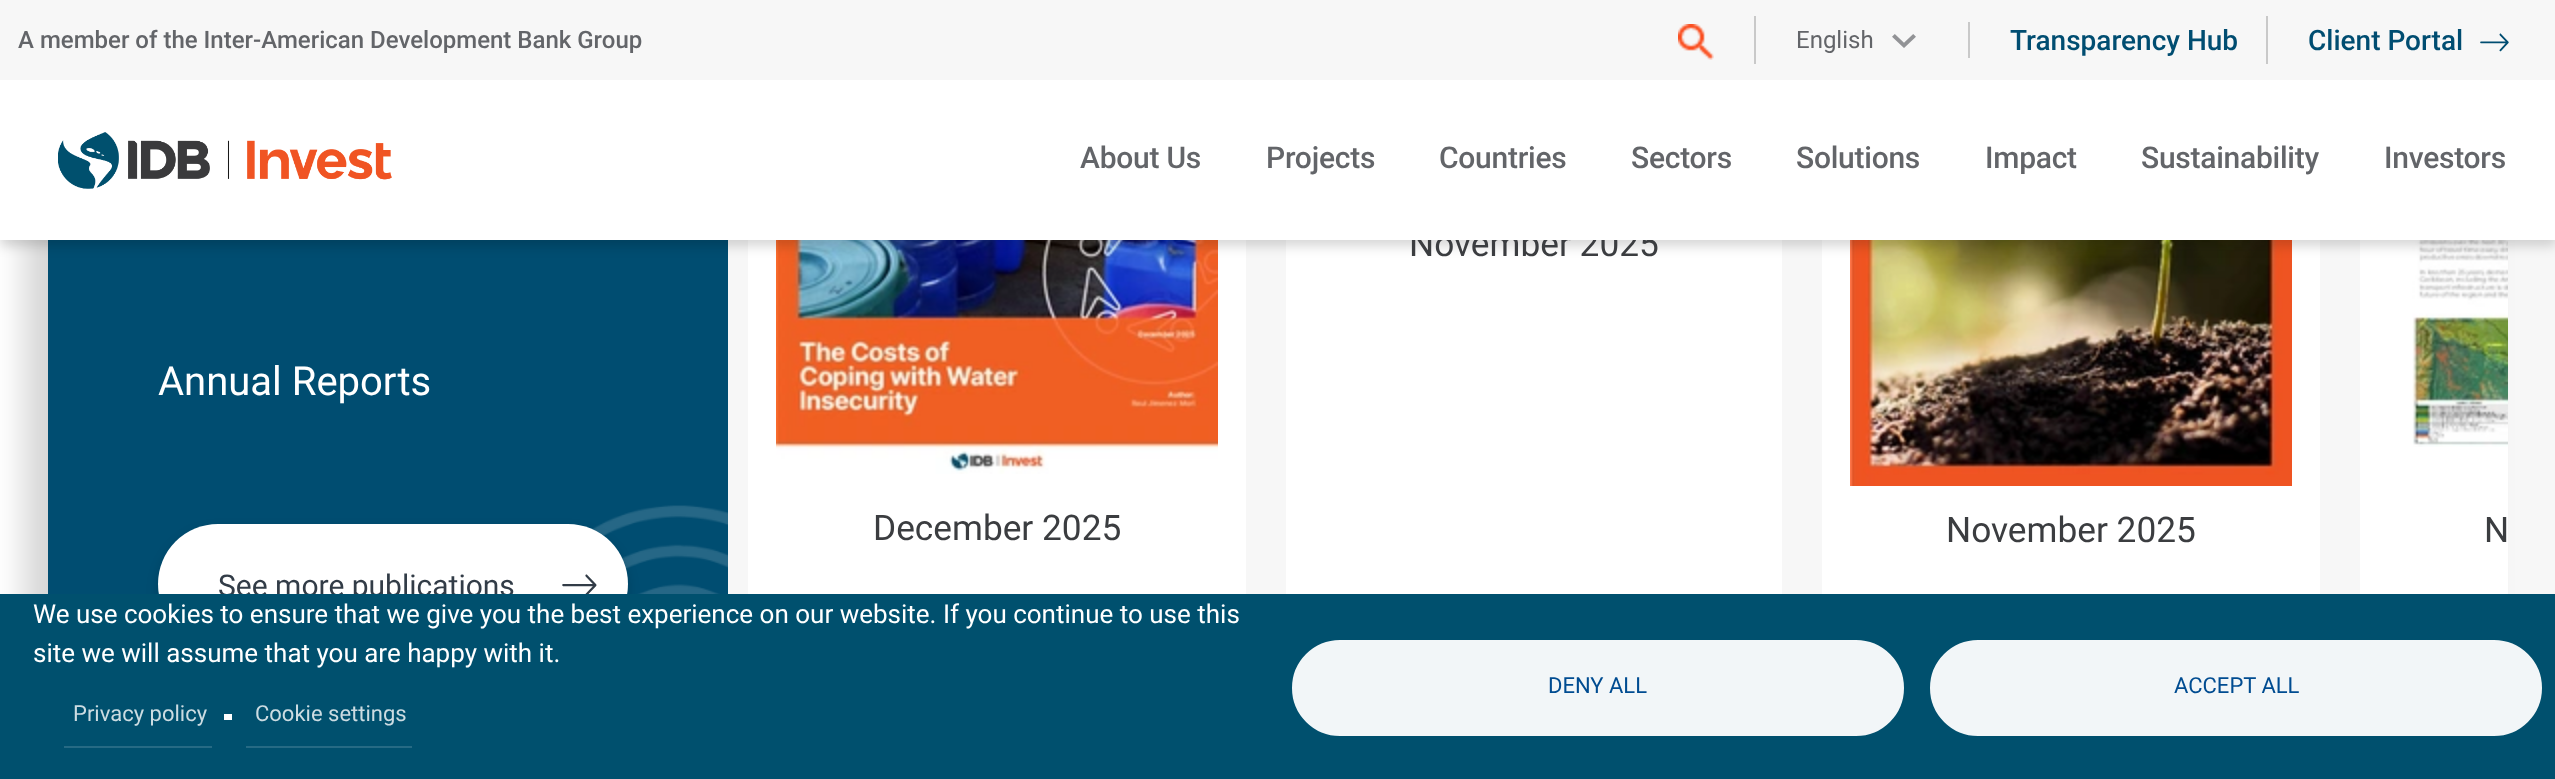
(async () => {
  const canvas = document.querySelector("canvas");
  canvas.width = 2555;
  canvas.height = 779;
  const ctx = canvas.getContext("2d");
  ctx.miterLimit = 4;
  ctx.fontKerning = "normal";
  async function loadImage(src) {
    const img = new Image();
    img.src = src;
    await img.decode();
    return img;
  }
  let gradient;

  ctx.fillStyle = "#ffffff";
  ctx.fillRect(0, 0, 2555, 779);
  gradient = ctx.createLinearGradient(0, 284, 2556, 284);
  gradient.addColorStop(0, "#ffffff");
  gradient.addColorStop(0.45, "#ffffff");
  gradient.addColorStop(0.5, "#f7f7f7");
  gradient.addColorStop(1, "#f7f7f7");
  ctx.fillStyle = gradient;
  ctx.fillRect(1190, 240, 1365, 354);
  ctx.fillStyle = "rgba(0, 0, 0, 0.16)";
  ctx.filter = "blur(15px)";
  ctx.beginPath();
  ctx.rect(24, -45, 2460, 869);
  ctx.fill();
  ctx.filter = "none";
  for (const [x, y, w, h, color] of [
    [728, 240, 1632, 354, "#f7f7f7"],
    [48, 240, 680, 354, "#004d71"],
    [1286, 240, 496, 354, "#ffffff"],
    [748, 240, 498, 354, "#ffffff"],
  ]) {
    ctx.fillStyle = color;
    ctx.fillRect(x, y, w, h);
  }
  ctx.drawImage(await loadImage("img/7.png"), 776, 240, 442, 234);
  ctx.fillRect(1822, 240, 498, 354);
  ctx.drawImage(await loadImage("img/8.png"), 1850, 240, 442, 246);
  ctx.fillRect(2360, 240, 148, 354);
  ctx.drawImage(await loadImage("img/9.png"), 2412, 240, 96, 207);
  ctx.fillStyle = "rgba(0, 0, 0, 0.16)";
  ctx.filter = "blur(6px)";
  ctx.beginPath();
  ctx.rect(0, 6, 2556, 240);
  ctx.fill();
  ctx.filter = "none";
  ctx.fillStyle = "#f7f7f7";
  ctx.fillRect(0, 0, 2555, 80);
  ctx.fillStyle = "#c9c9c9";
  ctx.fillRect(1754, 16, 2, 48);
  ctx.drawImage(await loadImage("img/1.png"), 1678, 24, 36, 36);
  ctx.fillRect(1968, 22, 2, 36);
  ctx.drawImage(await loadImage("img/2.png"), 1892, 34, 24, 14);
  ctx.fillRect(2266, 16, 2, 48);
  ctx.drawImage(await loadImage("img/3.png"), 2480, 33, 29, 19);
  ctx.drawImage(await loadImage("img/5.png"), 592, 505, 136, 89);
  ctx.fillStyle = "rgba(0, 0, 0, 0.16)";
  ctx.filter = "blur(6px)";
  ctx.beginPath();
  ctx.roundRect(158, 530, 470, 120, 60);
  ctx.fill();
  ctx.filter = "none";
  ctx.fillStyle = "#ffffff";
  ctx.beginPath();
  ctx.roundRect(158, 524, 470, 120, 60);
  ctx.fill();
  ctx.drawImage(await loadImage("img/6.png"), 562, 574, 35, 20);
  ctx.font = "500 24px Roboto";
  ctx.fillStyle = "#636569";
  ctx.fillText("A member of the Inter-American Development Bank Group", 18, 48);
  ctx.font = "24px Roboto";
  ctx.fillText("English", 1796, 48);
  ctx.font = "500 28px Roboto";
  ctx.fillStyle = "#004d71";
  ctx.fillText("Transparency Hub", 2010, 50);
  ctx.fillText("Client Portal", 2308, 50);
  ctx.font = "40px Roboto";
  ctx.fillStyle = "#ffffff";
  ctx.fillText("Annual Reports", 158, 395);
  ctx.font = "30px Roboto";
  ctx.fillStyle = "#323c47";
  ctx.fillText("See more publications", 218, 596);
  ctx.font = "35.25px Roboto";
  ctx.fillStyle = "#3b3d40";
  ctx.fillText("November 2025", 1409, 256);
  ctx.fillStyle = "#ffffff";
  ctx.fillRect(0, 80, 2555, 160);
  ctx.letterSpacing = "-0.25px";
  ctx.font = "500 30px Roboto";
  ctx.fillStyle = "#636569";
  for (const [text, x, y] of [
    ["Investors", 2384, 168],
    ["Sustainability", 2141, 168],
    ["Impact", 1985, 168],
    ["Solutions", 1796, 168],
    ["Sectors", 1631, 168],
    ["Countries", 1439, 168],
    ["Projects", 1266, 168],
    ["About Us", 1080, 168],
  ]) {
    ctx.fillText(text, x, y);
  }
  ctx.drawImage(await loadImage("img/4.png"), 58, 132, 334, 57);
  ctx.letterSpacing = "0px";
  ctx.font = "35.25px Roboto";
  ctx.fillStyle = "#3b3d40";
  for (const [text, x, y] of [
    ["December 2025", 873, 540],
    ["November 2025", 1946, 542],
    ["N", 2484, 542],
  ]) {
    ctx.fillText(text, x, y);
  }
  ctx.fillStyle = "#00506e";
  ctx.fillRect(0, 594, 2555, 185);
  ctx.font = "26px Roboto";
  ctx.fillStyle = "#ffffff";
  ctx.fillText("We use cookies to ensure that we give you the best experience on our website. If you continue to use this", 33, 623);
  ctx.fillText("site we will assume that you are happy with it.", 33, 662);
  ctx.fillStyle = "#266a84";
  ctx.fillRect(64, 746, 148, 2);
  ctx.font = "22px Roboto";
  ctx.fillStyle = "#ccdce2";
  ctx.fillText("Privacy policy", 73, 721);
  ctx.fillStyle = "#ffffff";
  ctx.fillRect(224, 714, 8, 6);
  ctx.fillStyle = "#266a84";
  ctx.fillRect(246, 746, 166, 2);
  ctx.fillStyle = "#ccdce2";
  ctx.fillText("Cookie settings", 255, 721);
  ctx.fillStyle = "#f2f6f8";
  ctx.beginPath();
  ctx.roundRect(1294, 642, 608, 92, 46);
  ctx.fill();
  ctx.strokeStyle = "#f2f6f8";
  ctx.lineWidth = 4;
  ctx.stroke();
  ctx.fillStyle = "#004c91";
  ctx.fillText("DENY ALL", 1548, 693);
  ctx.fillStyle = "#f2f6f8";
  ctx.beginPath();
  ctx.roundRect(1932, 642, 608, 92, 46);
  ctx.fill();
  ctx.stroke();
  ctx.fillStyle = "#004c91";
  ctx.fillText("ACCEPT ALL", 2174, 693);
})();
